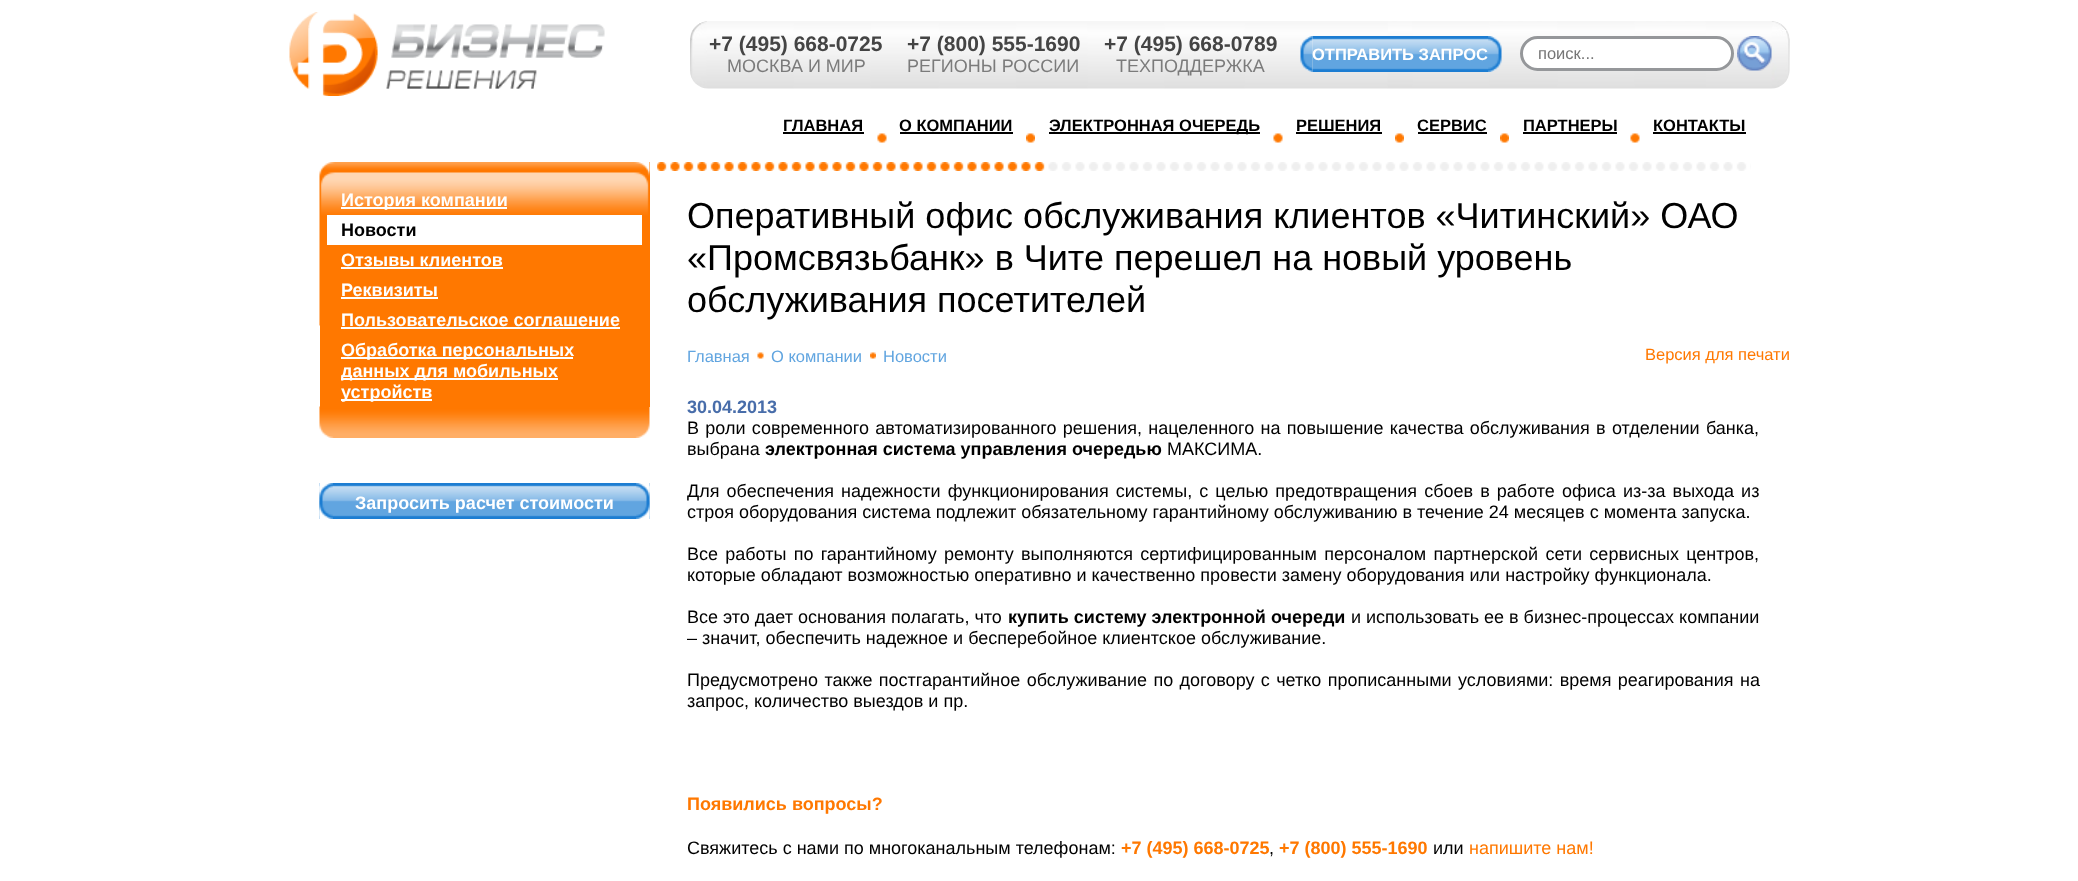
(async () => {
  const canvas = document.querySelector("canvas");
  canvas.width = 2078;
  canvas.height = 881;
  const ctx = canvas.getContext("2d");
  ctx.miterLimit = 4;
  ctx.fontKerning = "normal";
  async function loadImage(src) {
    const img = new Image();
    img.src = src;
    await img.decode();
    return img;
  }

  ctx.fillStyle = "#ffffff";
  ctx.fillRect(0, 0, 2078, 881);
  ctx.drawImage(await loadImage("img/1.png"), 289, 12, 316, 84);
  ctx.drawImage(await loadImage("img/2.png"), 690, 21, 1100, 68);
  ctx.drawImage(await loadImage("img/3.png"), 1300, 36, 13, 36);
  ctx.drawImage(await loadImage("img/4.png"), 1312, 36, 176, 36);
  ctx.drawImage(await loadImage("img/5.png"), 1488, 36, 14, 36);
  ctx.beginPath();
  ctx.roundRect(1521.5, 37.5, 211, 32, 16);
  ctx.fill();
  ctx.strokeStyle = "#95979a";
  ctx.lineWidth = 3;
  ctx.stroke();
  ctx.drawImage(await loadImage("img/6.png"), 1737, 36, 35, 35);
  ctx.fillStyle = "#000000";
  ctx.fillRect(783, 132, 81, 2);
  ctx.fillRect(900, 132, 113, 2);
  ctx.drawImage(await loadImage("img/7.png"), 877, 133, 10, 10);
  ctx.fillRect(1049, 132, 211, 2);
  ctx.drawImage(await loadImage("img/8.png"), 1026, 133, 9, 10);
  ctx.fillRect(1296, 132, 86, 2);
  ctx.drawImage(await loadImage("img/9.png"), 1273, 133, 10, 10);
  ctx.fillRect(1418, 132, 69, 2);
  ctx.drawImage(await loadImage("img/10.png"), 1395, 133, 9, 10);
  ctx.fillRect(1523, 132, 94, 2);
  ctx.drawImage(await loadImage("img/8.png"), 1500, 133, 9, 10);
  ctx.fillRect(1653, 132, 93, 2);
  ctx.drawImage(await loadImage("img/7.png"), 1630, 133, 10, 10);
  ctx.fillStyle = "#ff7800";
  ctx.fillRect(320, 162, 330, 245);
  ctx.drawImage(await loadImage("img/11.png"), 319, 162, 331, 164);
  for (const [x, y, w, h, color] of [
    [341, 207, 166, 2, "#ffffff"],
    [327, 215, 315, 30, "#ffffff"],
    [341, 267, 162, 2, "#ffffff"],
    [341, 297, 97, 2, "#ffffff"],
    [341, 327, 279, 2, "#ffffff"],
    [341, 357, 232, 2, "#ffffff"],
    [341, 378, 217, 2, "#ffffff"],
    [341, 399, 91, 2, "#ffffff"],
  ]) {
    ctx.fillStyle = color;
    ctx.fillRect(x, y, w, h);
  }
  ctx.drawImage(await loadImage("img/12.png"), 319, 406, 331, 32);
  ctx.drawImage(await loadImage("img/13.png"), 319, 483, 331, 36);
  ctx.drawImage(await loadImage("img/14.png"), 319, 483, 14, 36);
  ctx.drawImage(await loadImage("img/15.png"), 636, 483, 14, 36);
  ctx.drawImage(await loadImage("img/16.png"), 1045, 162, 706, 9);
  ctx.drawImage(await loadImage("img/17.png"), 657, 162, 388, 9);
  ctx.drawImage(await loadImage("img/18.png"), 757, 352, 7, 7);
  ctx.drawImage(await loadImage("img/19.png"), 870, 352, 6, 7);
  ctx.font = "bold 21px Liberation Sans";
  ctx.fillStyle = "#444444";
  ctx.fillText("+7 (495) 668-0725", 709, 51);
  ctx.font = "18px Liberation Sans";
  ctx.fillStyle = "#7b7b7b";
  ctx.fillText("МОСКВА И МИР", 727, 72);
  ctx.font = "bold 21px Liberation Sans";
  ctx.fillStyle = "#444444";
  ctx.fillText("+7 (800) 555-1690", 907, 51);
  ctx.font = "18px Liberation Sans";
  ctx.fillStyle = "#7b7b7b";
  ctx.fillText("РЕГИОНЫ РОССИИ", 907, 72);
  ctx.font = "bold 21px Liberation Sans";
  ctx.fillStyle = "#444444";
  ctx.fillText("+7 (495) 668-0789", 1104, 51);
  ctx.font = "18px Liberation Sans";
  ctx.fillStyle = "#7b7b7b";
  ctx.fillText("ТЕХПОДДЕРЖКА", 1116, 72);
  ctx.font = "bold 16.5px Liberation Sans";
  ctx.fillStyle = "#ffffff";
  ctx.fillText("ОТПРАВИТЬ ЗАПРОС", 1312, 60);
  ctx.font = "16.5px Liberation Sans";
  ctx.fillStyle = "#757575";
  ctx.fillText("поиск...", 1538, 59);
  ctx.font = "bold 16.5px Liberation Sans";
  ctx.fillStyle = "#000000";
  for (const [text, x, y] of [
    ["ГЛАВНАЯ", 783, 131],
    ["О КОМПАНИИ", 899, 131],
    ["ЭЛЕКТРОННАЯ ОЧЕРЕДЬ", 1049, 131],
    ["РЕШЕНИЯ", 1296, 131],
    ["СЕРВИС", 1417, 131],
    ["ПАРТНЕРЫ", 1523, 131],
    ["КОНТАКТЫ", 1653, 131],
  ]) {
    ctx.fillText(text, x, y);
  }
  ctx.font = "bold 18px Liberation Sans";
  ctx.fillStyle = "#ffffff";
  ctx.fillText("История компании", 341, 206);
  ctx.fillStyle = "#000000";
  ctx.fillText("Новости", 341, 236);
  ctx.fillStyle = "#ffffff";
  for (const [text, x, y] of [
    ["Отзывы клиентов", 341, 266],
    ["Реквизиты", 341, 296],
    ["Пользовательское соглашение", 341, 326],
    ["Обработка персональных", 341, 356],
    ["данных для мобильных", 341, 377],
    ["устройств", 341, 398],
    ["Запросить расчет стоимости", 355, 509],
  ]) {
    ctx.fillText(text, x, y);
  }
  ctx.font = "36px Liberation Sans";
  ctx.fillStyle = "#000000";
  for (const [text, x, y] of [
    ["Оперативный офис обслуживания клиентов «Читинский» ОАО", 687, 228],
    ["«Промсвязьбанк» в Чите перешел на новый уровень", 687, 270],
    ["обслуживания посетителей", 687, 312],
  ]) {
    ctx.fillText(text, x, y);
  }
  ctx.font = "16.5px Liberation Sans";
  ctx.fillStyle = "#61a5e0";
  for (const [text, x, y] of [
    ["Главная", 687, 362],
    ["О компании", 771, 362],
    ["Новости", 883, 362],
  ]) {
    ctx.fillText(text, x, y);
  }
  ctx.fillStyle = "#ff7800";
  ctx.fillText("Версия для печати", 1645, 360);
  ctx.font = "bold 18px Liberation Sans";
  ctx.fillStyle = "#486daa";
  ctx.fillText("30.04.2013", 687, 413);
  ctx.wordSpacing = "1.25px";
  ctx.font = "18px Liberation Sans";
  ctx.fillStyle = "#000000";
  ctx.fillText("В роли современного автоматизированного решения, нацеленного на повышение качества обслуживания в отделении банка,", 687, 434);
  ctx.wordSpacing = "0px";
  ctx.fillText("выбрана", 687, 455);
  ctx.font = "bold 18px Liberation Sans";
  ctx.fillText("электронная система управления очередью", 765, 455);
  ctx.font = "18px Liberation Sans";
  ctx.fillText("МАКСИМА.", 1167, 455);
  ctx.wordSpacing = "2.1px";
  ctx.fillText("Для обеспечения надежности функционирования системы, с целью предотвращения сбоев в работе офиса из-за выхода из", 687, 497);
  ctx.wordSpacing = "0px";
  ctx.fillText("строя оборудования система подлежит обязательному гарантийному обслуживанию в течение 24 месяцев с момента запуска.", 687, 518);
  ctx.wordSpacing = "2.25px";
  ctx.fillText("Все работы по гарантийному ремонту выполняются сертифицированным персоналом партнерской сети сервисных центров,", 687, 560);
  ctx.wordSpacing = "0px";
  ctx.fillText("которые обладают возможностью оперативно и качественно провести замену оборудования или настройку функционала.", 687, 581);
  ctx.fillText("Все это дает основания полагать, что", 687, 623);
  ctx.font = "bold 18px Liberation Sans";
  ctx.fillText("купить систему электронной очереди", 1008, 623);
  ctx.font = "18px Liberation Sans";
  ctx.fillText("и использовать ее в бизнес-процессах компании", 1351, 623);
  ctx.fillText("– значит, обеспечить надежное и бесперебойное клиентское обслуживание.", 687, 644);
  ctx.wordSpacing = "1.4px";
  ctx.fillText("Предусмотрено также постгарантийное обслуживание по договору с четко прописанными условиями: время реагирования на", 687, 686);
  ctx.wordSpacing = "0px";
  ctx.fillText("запрос, количество выездов и пр.", 687, 707);
  ctx.font = "bold 18px Liberation Sans";
  ctx.fillStyle = "#ff7800";
  ctx.fillText("Появились вопросы?", 687, 810);
  ctx.font = "18px Liberation Sans";
  ctx.fillStyle = "#000000";
  ctx.fillText("Свяжитесь с нами по многоканальным телефонам:", 687, 854);
  ctx.font = "bold 18px Liberation Sans";
  ctx.fillStyle = "#ff7800";
  ctx.fillText("+7 (495) 668-0725", 1121, 854);
  ctx.font = "18px Liberation Sans";
  ctx.fillStyle = "#000000";
  ctx.fillText(",", 1269, 854);
  ctx.font = "bold 18px Liberation Sans";
  ctx.fillStyle = "#ff7800";
  ctx.fillText("+7 (800) 555-1690", 1279, 854);
  ctx.font = "18px Liberation Sans";
  ctx.fillStyle = "#000000";
  ctx.fillText("или", 1433, 854);
  ctx.fillStyle = "#ff7800";
  ctx.fillText("напишите нам!", 1469, 854);
})();
